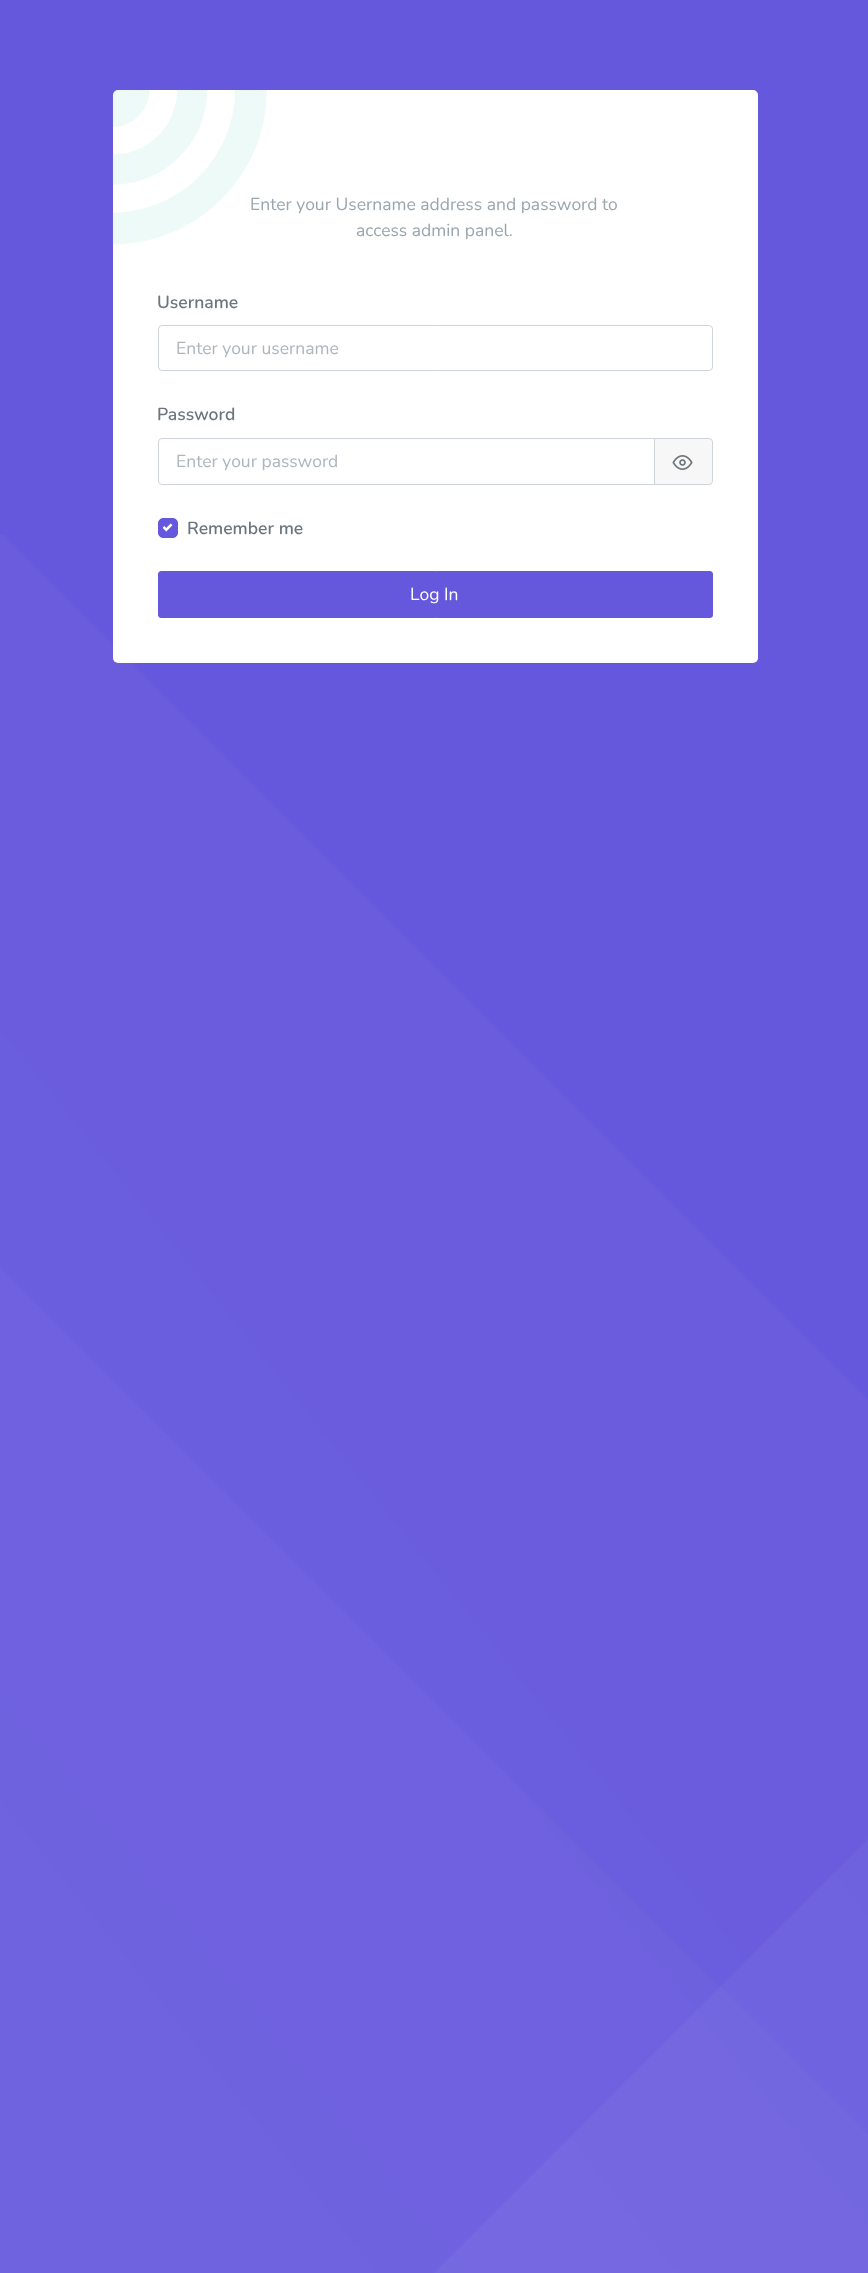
(async () => {
  const canvas = document.querySelector("canvas");
  canvas.width = 868;
  canvas.height = 2273;
  const ctx = canvas.getContext("2d");
  ctx.miterLimit = 4;
  ctx.fontKerning = "normal";
  async function loadImage(src) {
    const img = new Image();
    img.src = src;
    await img.decode();
    return img;
  }

  ctx.fillStyle = "#6658dd";
  ctx.fillRect(0, 0, 868, 2273);
  ctx.drawImage(await loadImage("img/1.png"), 0, 535, 868, 1738);
  ctx.fillStyle = "#ffffff";
  ctx.beginPath();
  ctx.roundRect(113, 90, 645, 573, 5);
  ctx.fill();
  ctx.drawImage(await loadImage("img/2.png"), 112, 90, 155, 155);
  ctx.beginPath();
  ctx.roundRect(158.5, 325.5, 554, 45, 3.5);
  ctx.strokeStyle = "#ced4da";
  ctx.stroke();
  ctx.fillStyle = "#f7f7f7";
  ctx.beginPath();
  ctx.roundRect(654.5, 438.5, 58, 46, [0, 3.5, 3.5, 0]);
  ctx.fill();
  ctx.stroke();
  ctx.beginPath();
  ctx.roundRect(158.5, 438.5, 496, 46, [3.5, 0, 0, 3.5]);
  ctx.stroke();
  ctx.drawImage(await loadImage("img/3.png"), 672, 455, 21, 15);
  ctx.fillStyle = "#6658dd";
  ctx.beginPath();
  ctx.roundRect(158.5, 518.5, 19, 19, 4.5);
  ctx.fill();
  ctx.strokeStyle = "#6658dd";
  ctx.stroke();
  ctx.drawImage(await loadImage("img/4.png"), 163, 523, 10, 9);
  ctx.beginPath();
  ctx.roundRect(158.5, 571.5, 554, 46, 2.5);
  ctx.fill();
  ctx.stroke();
  ctx.font = "17.5px Nunito";
  ctx.fillStyle = "#98a6ad";
  ctx.fillText("Enter your Username address and password to", 250, 210);
  ctx.fillText("access admin panel.", 356, 236);
  ctx.font = "600 17.5px Nunito";
  ctx.fillStyle = "#6c757d";
  ctx.fillText("Username", 157, 308);
  ctx.font = "17.5px Nunito";
  ctx.fillStyle = "#adb5bd";
  ctx.fillText("Enter your username", 176, 354);
  ctx.font = "600 17.5px Nunito";
  ctx.fillStyle = "#6c757d";
  ctx.fillText("Password", 157, 420);
  ctx.font = "17.5px Nunito";
  ctx.fillStyle = "#adb5bd";
  ctx.fillText("Enter your password", 176, 467);
  ctx.font = "600 17.5px Nunito";
  ctx.fillStyle = "#6c757d";
  ctx.fillText("Remember me", 187, 534);
  ctx.font = "17.5px Nunito";
  ctx.fillStyle = "#ffffff";
  ctx.fillText("Log In", 410, 600);
})();
